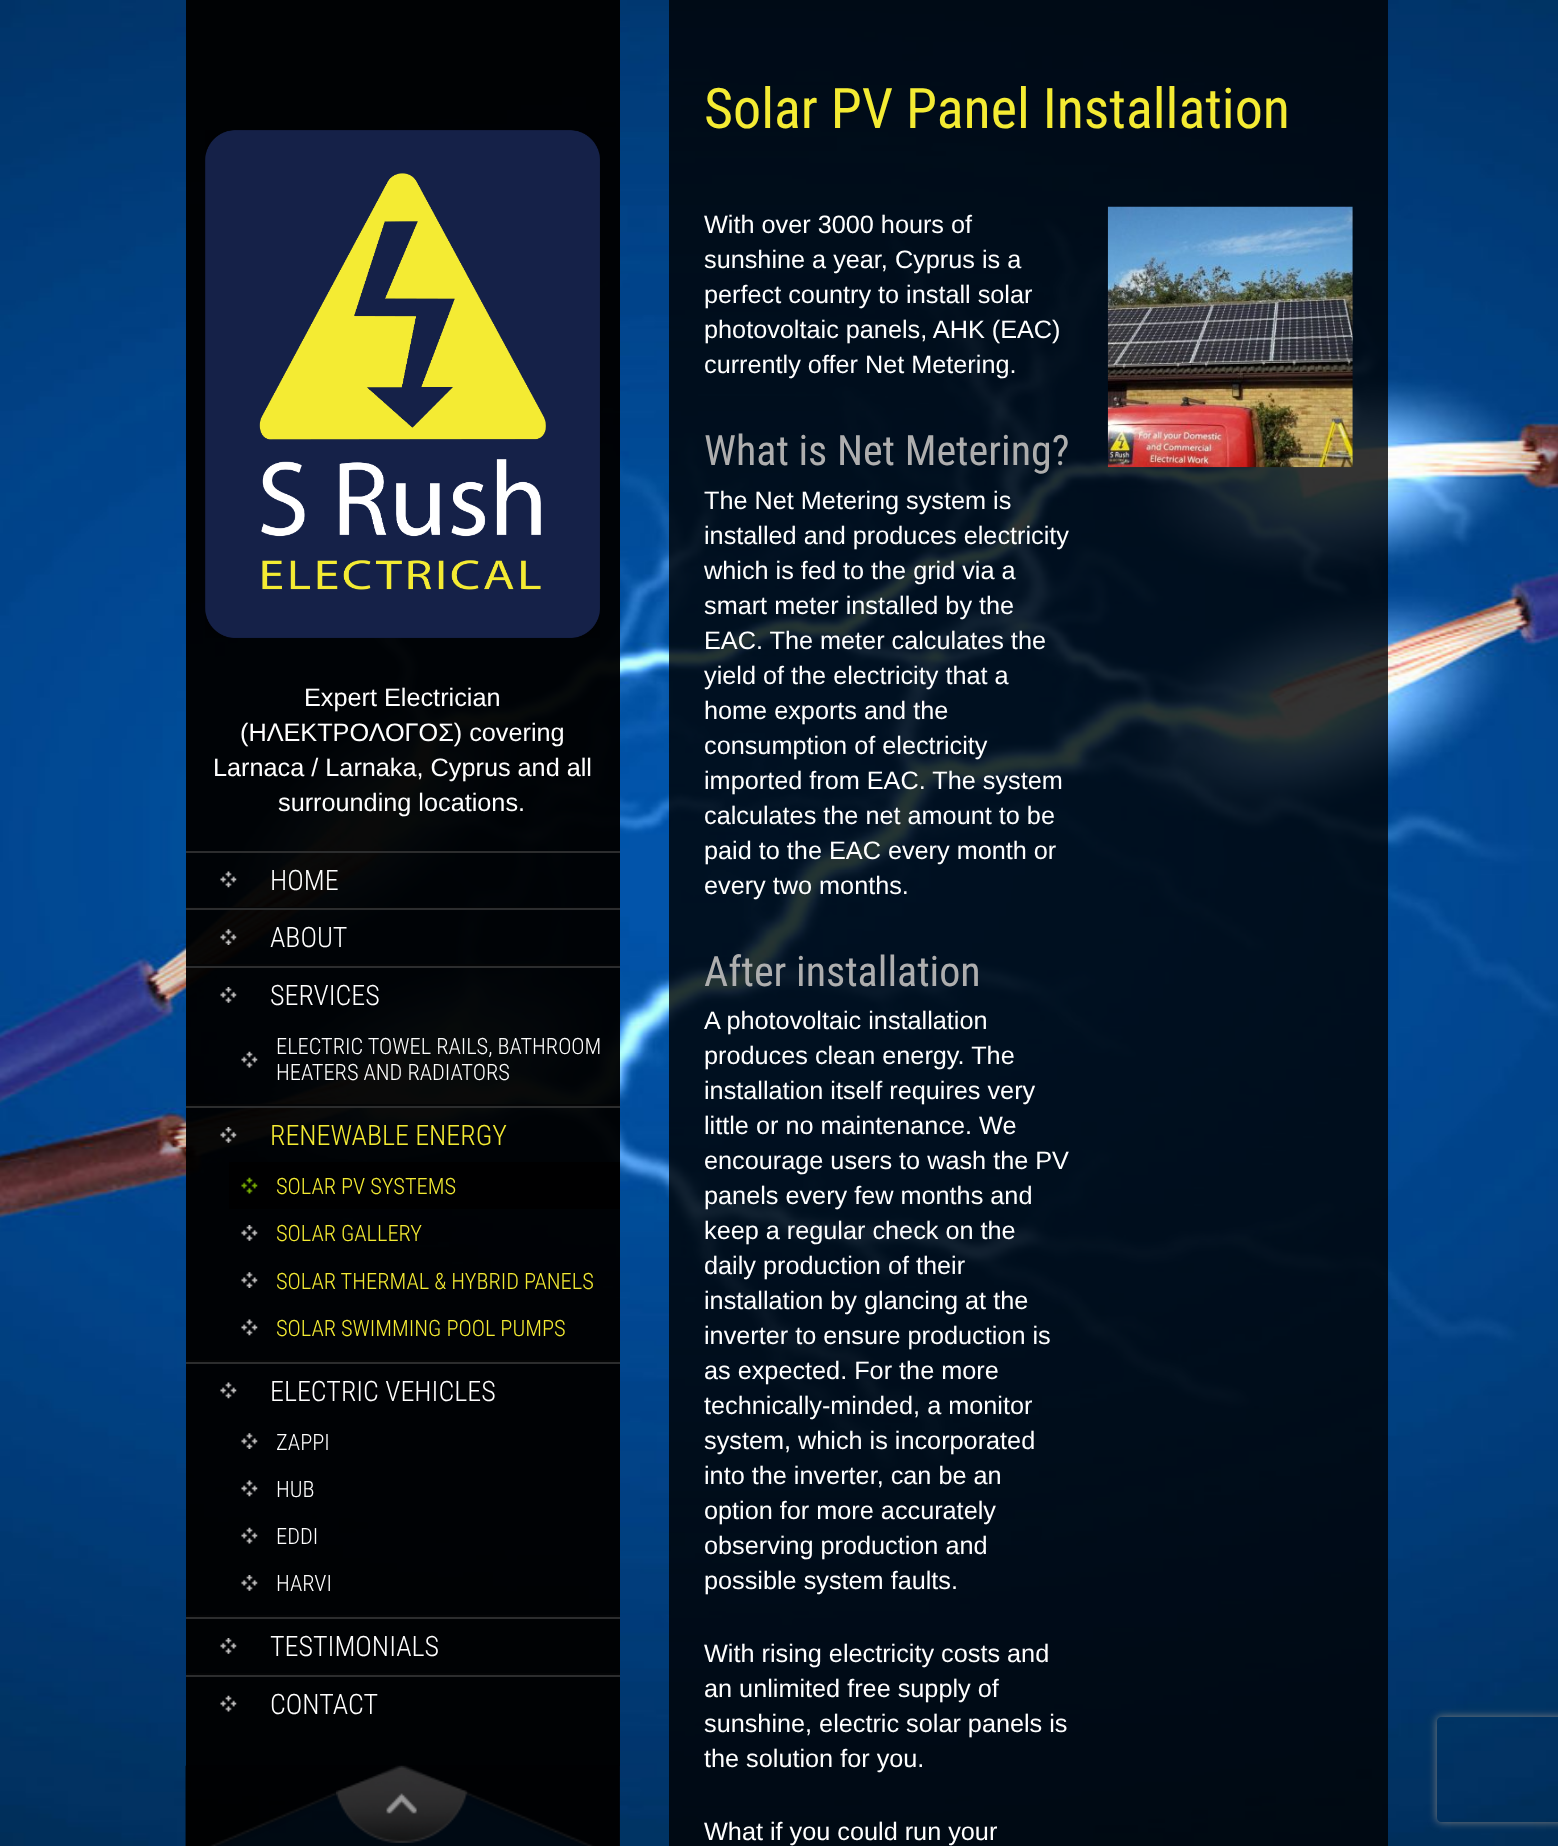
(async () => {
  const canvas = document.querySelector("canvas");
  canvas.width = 1558;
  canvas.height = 1846;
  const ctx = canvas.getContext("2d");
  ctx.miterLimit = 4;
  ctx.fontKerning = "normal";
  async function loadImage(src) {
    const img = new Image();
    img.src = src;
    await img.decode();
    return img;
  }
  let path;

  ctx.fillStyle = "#ffffff";
  ctx.fillRect(0, 0, 1558, 1846);
  ctx.drawImage(await loadImage("img/1.png"), 0, 0, 1558, 1846);
  ctx.fillStyle = "rgba(0, 0, 0, 0.8)";
  ctx.fillRect(186, 0, 434, 1846);
  ctx.fillRect(186, 0, 434, 851);
  ctx.drawImage(await loadImage("img/2.png"), 205, 130, 395, 508);
  for (const [x, y, w, h, color] of [
    [186, 853, 434, 913, "rgba(0, 0, 0, 0.8)"],
    [186, 851, 434, 2, "#2c2d2e"],
    [186, 907, 434, 1, "#040506"],
  ]) {
    ctx.fillStyle = color;
    ctx.fillRect(x, y, w, h);
  }
  ctx.drawImage(await loadImage("img/3.png"), 220, 871, 17, 17);
  ctx.fillStyle = "#2c2d2e";
  ctx.fillRect(186, 908, 434, 2);
  ctx.fillStyle = "#040506";
  ctx.fillRect(186, 964, 434, 2);
  ctx.drawImage(await loadImage("img/4.png"), 220, 929, 17, 16);
  ctx.fillStyle = "#2c2d2e";
  ctx.fillRect(186, 966, 434, 2);
  ctx.fillStyle = "#040506";
  ctx.fillRect(186, 1104, 434, 2);
  ctx.drawImage(await loadImage("img/5.png"), 220, 987, 17, 16);
  ctx.drawImage(await loadImage("img/6.png"), 241, 1051, 17, 17);
  ctx.fillStyle = "#2c2d2e";
  ctx.fillRect(186, 1106, 434, 2);
  ctx.fillStyle = "#040506";
  ctx.fillRect(186, 1360, 434, 2);
  ctx.drawImage(await loadImage("img/7.png"), 220, 1127, 17, 16);
  ctx.fillStyle = "rgba(0, 0, 0, 0.8)";
  ctx.fillRect(229, 1162, 391, 47);
  ctx.drawImage(await loadImage("img/8.png"), 241, 1177, 17, 17);
  ctx.drawImage(await loadImage("img/9.png"), 241, 1225, 17, 16);
  ctx.drawImage(await loadImage("img/10.png"), 241, 1272, 17, 16);
  ctx.drawImage(await loadImage("img/11.png"), 241, 1319, 17, 17);
  ctx.fillStyle = "#2c2d2e";
  ctx.fillRect(186, 1362, 434, 2);
  ctx.fillStyle = "#040506";
  ctx.fillRect(186, 1615, 434, 2);
  ctx.drawImage(await loadImage("img/12.png"), 220, 1382, 17, 17);
  ctx.drawImage(await loadImage("img/13.png"), 241, 1433, 17, 16);
  ctx.drawImage(await loadImage("img/14.png"), 241, 1480, 17, 17);
  ctx.drawImage(await loadImage("img/15.png"), 241, 1527, 17, 17);
  ctx.drawImage(await loadImage("img/16.png"), 241, 1575, 17, 16);
  ctx.fillStyle = "#2c2d2e";
  ctx.fillRect(186, 1617, 434, 2);
  ctx.fillStyle = "#040506";
  ctx.fillRect(186, 1673, 434, 2);
  ctx.drawImage(await loadImage("img/17.png"), 220, 1638, 17, 16);
  ctx.fillStyle = "#2c2d2e";
  ctx.fillRect(186, 1675, 434, 2);
  ctx.drawImage(await loadImage("img/18.png"), 220, 1695, 17, 17);
  ctx.drawImage(await loadImage("img/19.png"), 185, 1765, 435, 81);
  ctx.drawImage(await loadImage("img/20.png"), 336, 1765, 132, 78);
  ctx.fillStyle = "rgba(0, 0, 0, 0.8)";
  ctx.fillRect(669, 0, 719, 1846);
  ctx.drawImage(await loadImage("img/21.png"), 1107, 206, 246, 262);
  ctx.save();
  path = new Path2D("M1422 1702H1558V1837H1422ZM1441 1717H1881C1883 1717 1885 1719 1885 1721V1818C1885 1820 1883 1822 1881 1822H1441C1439 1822 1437 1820 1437 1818V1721C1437 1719 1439 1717 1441 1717Z");
  ctx.clip(path, "evenodd");
  ctx.fillStyle = "#808080";
  ctx.filter = "blur(4.5px)";
  ctx.beginPath();
  ctx.roundRect(1437, 1717, 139, 105, 4);
  ctx.fill();
  ctx.filter = "none";
  ctx.restore();
  ctx.font = "25.25px Liberation Sans";
  ctx.fillStyle = "#ffffff";
  for (const [text, x, y] of [
    ["Expert Electrician", 304, 706],
    ["(ΗΛΕΚΤΡΟΛΟΓΟΣ) covering", 240, 741],
    ["Larnaca / Larnaka, Cyprus and all", 213, 776],
    ["surrounding locations.", 278, 811],
  ]) {
    ctx.fillText(text, x, y);
  }
  ctx.font = "300 28px Roboto Condensed";
  for (const [text, x, y] of [
    ["HOME", 270, 890],
    ["ABOUT", 270, 947],
    ["SERVICES", 270, 1005],
  ]) {
    ctx.fillText(text, x, y);
  }
  ctx.font = "300 22.4px Roboto Condensed";
  ctx.fillText("ELECTRIC TOWEL RAILS, BATHROOM", 276, 1054);
  ctx.fillText("HEATERS AND RADIATORS", 276, 1080);
  ctx.font = "300 28px Roboto Condensed";
  ctx.fillStyle = "#f4eb33";
  ctx.fillText("RENEWABLE ENERGY", 270, 1145);
  ctx.font = "300 22.4px Roboto Condensed";
  for (const [text, x, y] of [
    ["SOLAR PV SYSTEMS", 276, 1194],
    ["SOLAR GALLERY", 276, 1241],
    ["SOLAR THERMAL & HYBRID PANELS", 276, 1289],
    ["SOLAR SWIMMING POOL PUMPS", 276, 1336],
  ]) {
    ctx.fillText(text, x, y);
  }
  ctx.font = "300 28px Roboto Condensed";
  ctx.fillStyle = "#ffffff";
  ctx.fillText("ELECTRIC VEHICLES", 270, 1401);
  ctx.font = "300 22.4px Roboto Condensed";
  for (const [text, x, y] of [
    ["ZAPPI", 276, 1450],
    ["HUB", 276, 1497],
    ["EDDI", 276, 1544],
    ["HARVI", 276, 1591],
  ]) {
    ctx.fillText(text, x, y);
  }
  ctx.font = "300 28px Roboto Condensed";
  ctx.fillText("TESTIMONIALS", 270, 1656);
  ctx.fillText("CONTACT", 270, 1714);
  ctx.font = "56px Roboto Condensed";
  ctx.fillStyle = "#f4eb33";
  ctx.fillText("Solar PV Panel Installation", 704, 128);
  ctx.font = "25.25px Liberation Sans";
  ctx.fillStyle = "#ffffff";
  for (const [text, x, y] of [
    ["With over 3000 hours of", 704, 233],
    ["sunshine a year, Cyprus is a", 704, 268],
    ["perfect country to install solar", 704, 303],
    ["photovoltaic panels, AHK (EAC)", 704, 338],
    ["currently offer Net Metering.", 704, 373],
  ]) {
    ctx.fillText(text, x, y);
  }
  ctx.font = "42px Roboto Condensed";
  ctx.fillStyle = "#aeaeae";
  ctx.fillText("What is Net Metering?", 704, 465);
  ctx.font = "25.25px Liberation Sans";
  ctx.fillStyle = "#ffffff";
  for (const [text, x, y] of [
    ["The Net Metering system is", 704, 509],
    ["installed and produces electricity", 704, 544],
    ["which is fed to the grid via a", 704, 579],
    ["smart meter installed by the", 704, 614],
    ["EAC. The meter calculates the", 704, 649],
    ["yield of the electricity that a", 704, 684],
    ["home exports and the", 704, 719],
    ["consumption of electricity", 704, 754],
    ["imported from EAC. The system", 704, 789],
    ["calculates the net amount to be", 704, 824],
    ["paid to the EAC every month or", 704, 859],
    ["every two months.", 704, 894],
  ]) {
    ctx.fillText(text, x, y);
  }
  ctx.font = "42px Roboto Condensed";
  ctx.fillStyle = "#aeaeae";
  ctx.fillText("After installation", 704, 986);
  ctx.font = "25.25px Liberation Sans";
  ctx.fillStyle = "#ffffff";
  for (const [text, x, y] of [
    ["A photovoltaic installation", 704, 1029],
    ["produces clean energy. The", 704, 1064],
    ["installation itself requires very", 704, 1099],
    ["little or no maintenance. We", 704, 1134],
    ["encourage users to wash the PV", 704, 1169],
    ["panels every few months and", 704, 1204],
    ["keep a regular check on the", 704, 1239],
    ["daily production of their", 704, 1274],
    ["installation by glancing at the", 704, 1309],
    ["inverter to ensure production is", 704, 1344],
    ["as expected. For the more", 704, 1379],
    ["technically-minded, a monitor", 704, 1414],
    ["system, which is incorporated", 704, 1449],
    ["into the inverter, can be an", 704, 1484],
    ["option for more accurately", 704, 1519],
    ["observing production and", 704, 1554],
    ["possible system faults.", 704, 1589],
    ["With rising electricity costs and", 704, 1662],
    ["an unlimited free supply of", 704, 1697],
    ["sunshine, electric solar panels is", 704, 1732],
    ["the solution for you.", 704, 1767],
    ["What if you could run your", 704, 1840],
  ]) {
    ctx.fillText(text, x, y);
  }
})();
